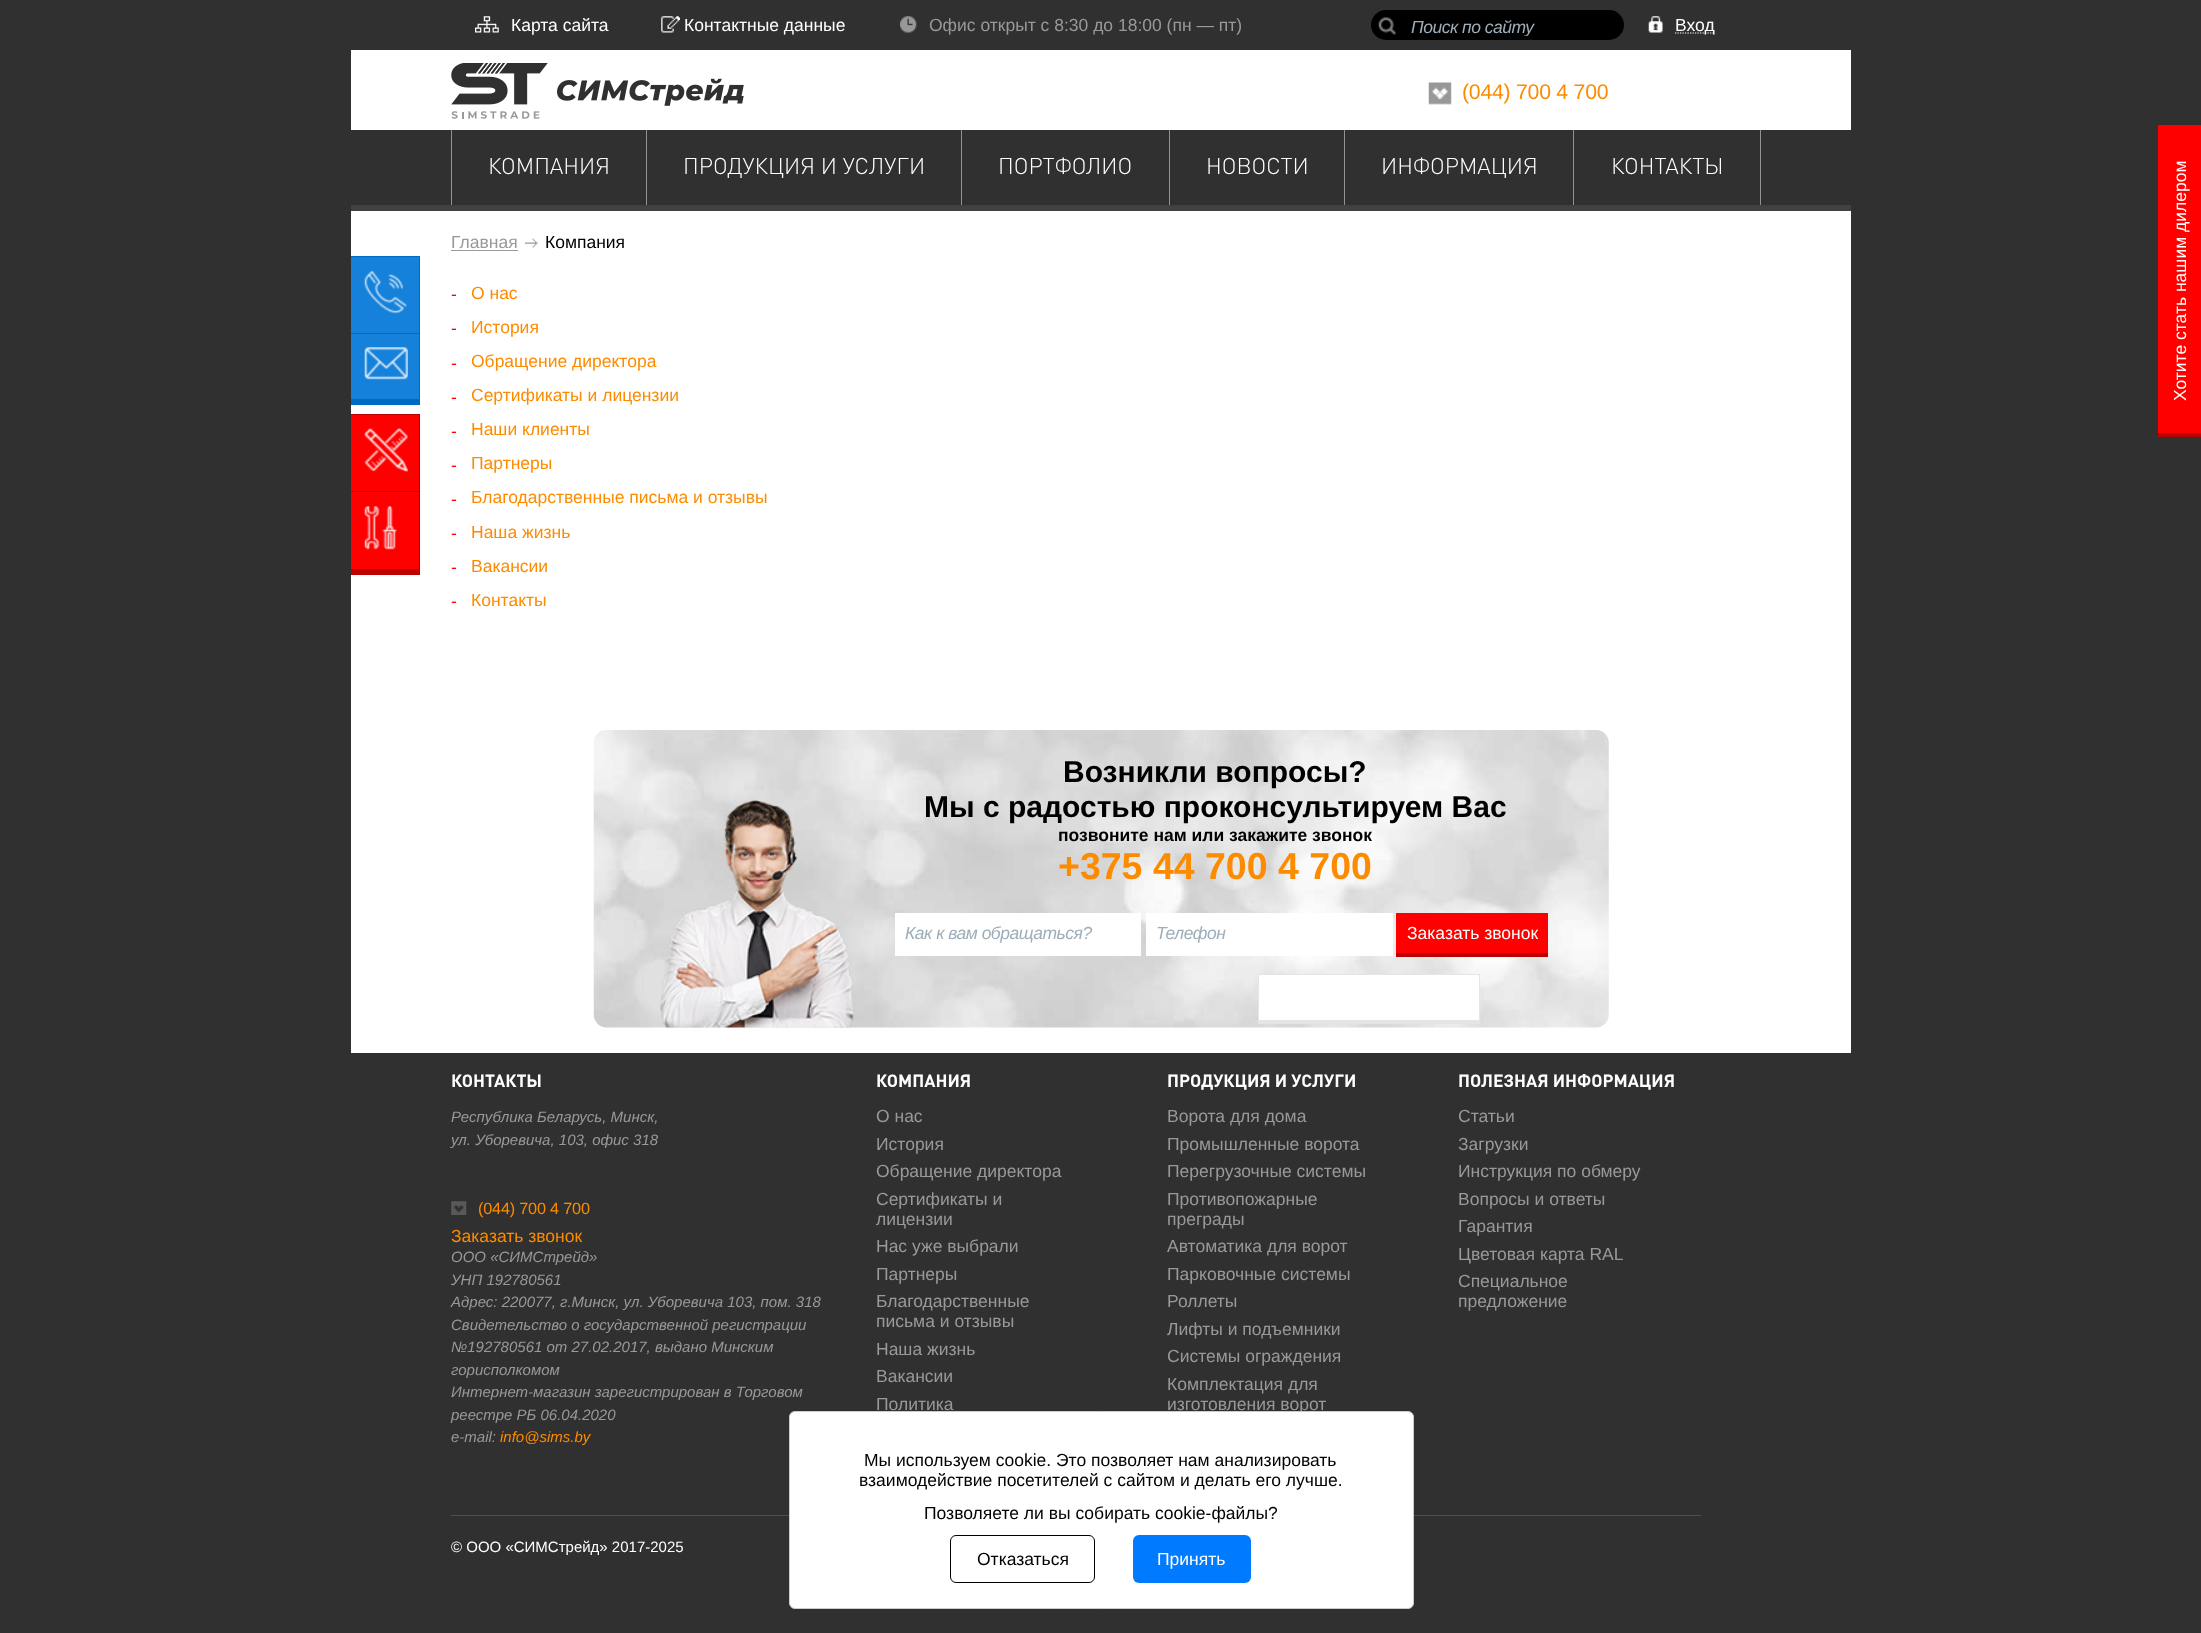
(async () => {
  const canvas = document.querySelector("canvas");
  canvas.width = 2201;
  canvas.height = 1633;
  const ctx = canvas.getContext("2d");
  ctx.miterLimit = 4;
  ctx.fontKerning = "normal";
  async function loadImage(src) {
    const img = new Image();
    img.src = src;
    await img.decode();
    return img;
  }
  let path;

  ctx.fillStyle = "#303030";
  ctx.fillRect(0, 0, 2201, 1633);
  ctx.drawImage(await loadImage("img/1.png"), 475, 16, 24, 17);
  ctx.drawImage(await loadImage("img/2.png"), 661, 16, 19, 17);
  ctx.drawImage(await loadImage("img/3.png"), 900, 16, 17, 17);
  ctx.fillStyle = "#000000";
  ctx.beginPath();
  ctx.roundRect(1371, 10, 253, 30, 15);
  ctx.fill();
  ctx.drawImage(await loadImage("img/4.png"), 1378, 17, 19, 18);
  path = new Path2D("M1675 33H1715");
  ctx.strokeStyle = "#ffffff";
  ctx.lineWidth = 1.2;
  ctx.setLineDash([1.25, 1.25]);
  ctx.stroke(path);
  ctx.drawImage(await loadImage("img/5.png"), 1648, 16, 15, 17);
  ctx.fillStyle = "#ffffff";
  ctx.fillRect(351, 50, 1500, 80);
  ctx.drawImage(await loadImage("img/6.png"), 451, 63, 293, 56);
  ctx.drawImage(await loadImage("img/7.png"), 1428, 82, 24, 23);
  for (const [x, y, w, h, color] of [
    [351, 205, 1500, 6, "#414141"],
    [451, 130, 1, 75, "#929292"],
    [646, 130, 1, 75, "#929292"],
    [961, 130, 1, 75, "#929292"],
    [1169, 130, 1, 75, "#929292"],
    [1344, 130, 1, 75, "#929292"],
    [1760, 130, 1, 75, "#929292"],
    [1573, 130, 1, 75, "#929292"],
    [351, 211, 1500, 842, "#ffffff"],
    [451, 250, 67, 1, "#999999"],
  ]) {
    ctx.fillStyle = color;
    ctx.fillRect(x, y, w, h);
  }
  ctx.drawImage(await loadImage("img/8.png"), 525, 238, 13, 10);
  for (const [x, y, w, h, color] of [
    [351, 257, 68, 76, "#1581da"],
    [351, 256, 69, 1, "#0069c1"],
    [419, 256, 1, 77, "#0069c1"],
  ]) {
    ctx.fillStyle = color;
    ctx.fillRect(x, y, w, h);
  }
  ctx.drawImage(await loadImage("img/9.png"), 364, 271, 43, 43);
  for (const [x, y, w, h, color] of [
    [351, 334, 68, 65, "#1581da"],
    [351, 333, 69, 1, "#0069c1"],
    [419, 333, 1, 72, "#0069c1"],
    [351, 399, 69, 6, "#0069c1"],
  ]) {
    ctx.fillStyle = color;
    ctx.fillRect(x, y, w, h);
  }
  ctx.drawImage(await loadImage("img/10.png"), 364, 347, 44, 33);
  for (const [x, y, w, h, color] of [
    [351, 415, 68, 76, "#ff0000"],
    [351, 414, 69, 1, "#bd0000"],
    [419, 414, 1, 77, "#bd0000"],
  ]) {
    ctx.fillStyle = color;
    ctx.fillRect(x, y, w, h);
  }
  ctx.drawImage(await loadImage("img/11.png"), 364, 428, 44, 44);
  for (const [x, y, w, h, color] of [
    [351, 492, 68, 77, "#ff0000"],
    [351, 491, 69, 1, "#bd0000"],
    [419, 491, 1, 84, "#bd0000"],
    [351, 569, 69, 6, "#bd0000"],
  ]) {
    ctx.fillStyle = color;
    ctx.fillRect(x, y, w, h);
  }
  ctx.drawImage(await loadImage("img/12.png"), 364, 506, 33, 44);
  ctx.drawImage(await loadImage("img/13.png"), 593, 730, 1016, 298);
  ctx.drawImage(await loadImage("img/14.png"), 660, 799, 194, 229);
  for (const [x, y, w, h, color] of [
    [895, 913, 246, 43, "#ffffff"],
    [1146, 913, 247, 43, "#ffffff"],
    [1396, 913, 152, 40, "#ff0000"],
    [1396, 953, 152, 4, "#bd0000"],
    [1259, 975, 220, 45, "#ffffff"],
    [1258, 974, 222, 1, "#e5e5e5"],
    [1479, 974, 1, 50, "#e5e5e5"],
    [1258, 1020, 222, 4, "#e5e5e5"],
    [1258, 974, 1, 50, "#e5e5e5"],
  ]) {
    ctx.fillStyle = color;
    ctx.fillRect(x, y, w, h);
  }
  ctx.drawImage(await loadImage("img/15.png"), 451, 1201, 16, 14);
  for (const [x, y, w, h, color] of [
    [451, 1515, 1250, 1, "#4d4d4d"],
    [2158, 125, 43, 308, "#ff0000"],
    [2158, 433, 43, 4, "#bd0000"],
  ]) {
    ctx.fillStyle = color;
    ctx.fillRect(x, y, w, h);
  }
  ctx.font = "17.5px Liberation Sans";
  ctx.fillStyle = "#ffffff";
  ctx.fillText("Карта сайта", 511, 31);
  ctx.fillText("Контактные данные", 684, 31);
  ctx.fillStyle = "#999999";
  ctx.fillText("Офис открыт с 8:30 до 18:00 (пн — пт)", 929, 31);
  ctx.save();
  ctx.beginPath();
  ctx.rect(1411, 16, 183, 20);
  ctx.clip();
  ctx.letterSpacing = "-0.5px";
  ctx.font = "italic 17.5px Liberation Sans";
  ctx.fillStyle = "#9daeba";
  ctx.fillText("Поиск по сайту", 1411, 33);
  ctx.restore();
  ctx.fillStyle = "#ffffff";
  ctx.fillText("Вход", 1675, 31);
  ctx.letterSpacing = "-0.25px";
  ctx.font = "21.25px Liberation Sans";
  ctx.fillStyle = "#fd8b00";
  ctx.fillText("(044) 700 4 700", 1462, 99);
  ctx.letterSpacing = "0px";
  ctx.font = "300 22.5px DIN";
  ctx.fillStyle = "#ffffff";
  for (const [text, x, y] of [
    ["КОМПАНИЯ", 488, 174],
    ["ПРОДУКЦИЯ И УСЛУГИ", 683, 174],
    ["ПОРТФОЛИО", 998, 174],
    ["НОВОСТИ", 1206, 174],
    ["ИНФОРМАЦИЯ", 1381, 174],
    ["КОНТАКТЫ", 1611, 174],
  ]) {
    ctx.fillText(text, x, y);
  }
  ctx.font = "17.5px Liberation Sans";
  ctx.fillStyle = "#999999";
  ctx.fillText("Главная", 451, 248);
  ctx.fillStyle = "#000000";
  ctx.fillText("Компания", 545, 248);
  ctx.fillStyle = "#ff0000";
  ctx.fillText("-", 451, 300);
  ctx.fillStyle = "#fd8b00";
  ctx.fillText("О нас", 471, 299);
  ctx.fillStyle = "#ff0000";
  ctx.fillText("-", 451, 334);
  ctx.fillStyle = "#fd8b00";
  ctx.fillText("История", 471, 333);
  ctx.fillStyle = "#ff0000";
  ctx.fillText("-", 451, 369);
  ctx.fillStyle = "#fd8b00";
  ctx.fillText("Обращение директора", 471, 367);
  ctx.fillStyle = "#ff0000";
  ctx.fillText("-", 451, 403);
  ctx.fillStyle = "#fd8b00";
  ctx.fillText("Сертификаты и лицензии", 471, 401);
  ctx.fillStyle = "#ff0000";
  ctx.fillText("-", 451, 437);
  ctx.fillStyle = "#fd8b00";
  ctx.fillText("Наши клиенты", 471, 435);
  ctx.fillStyle = "#ff0000";
  ctx.fillText("-", 451, 471);
  ctx.fillStyle = "#fd8b00";
  ctx.fillText("Партнеры", 471, 469);
  ctx.fillStyle = "#ff0000";
  ctx.fillText("-", 451, 505);
  ctx.fillStyle = "#fd8b00";
  ctx.fillText("Благодарственные письма и отзывы", 471, 503);
  ctx.fillStyle = "#ff0000";
  ctx.fillText("-", 451, 539);
  ctx.fillStyle = "#fd8b00";
  ctx.fillText("Наша жизнь", 471, 538);
  ctx.fillStyle = "#ff0000";
  ctx.fillText("-", 451, 573);
  ctx.fillStyle = "#fd8b00";
  ctx.fillText("Вакансии", 471, 572);
  ctx.fillStyle = "#ff0000";
  ctx.fillText("-", 451, 607);
  ctx.fillStyle = "#fd8b00";
  ctx.fillText("Контакты", 471, 606);
  ctx.font = "bold 30px Liberation Sans";
  ctx.fillStyle = "#000000";
  ctx.fillText("Возникли вопросы?", 1063, 782);
  ctx.fillText("Мы с радостью проконсультируем Вас", 924, 817);
  ctx.font = "bold 17.5px Liberation Sans";
  ctx.fillText("позвоните нам или закажите звонок", 1058, 841);
  ctx.font = "bold 37.5px Liberation Sans";
  ctx.fillStyle = "#fd8b00";
  ctx.fillText("+375 44 700 4 700", 1058, 879);
  ctx.letterSpacing = "-0.5px";
  ctx.font = "italic 17.5px Liberation Sans";
  ctx.fillStyle = "#9daeba";
  ctx.fillText("Как к вам обращаться?", 905, 939);
  ctx.fillText("Телефон", 1156, 939);
  ctx.letterSpacing = "0px";
  ctx.font = "17.5px Liberation Sans";
  ctx.fillStyle = "#ffffff";
  ctx.fillText("Заказать звонок", 1407, 939);
  ctx.font = "bold 17.5px DIN";
  ctx.fillText("КОНТАКТЫ", 451, 1087);
  ctx.font = "italic 15px Liberation Sans";
  ctx.fillStyle = "#999999";
  ctx.fillText("Республика Беларусь, Минск,", 451, 1122);
  ctx.fillText("ул. Уборевича, 103, офис 318", 451, 1145);
  ctx.letterSpacing = "-0.2px";
  ctx.font = "16.25px Liberation Sans";
  ctx.fillStyle = "#fd8b00";
  ctx.fillText("(044) 700 4 700", 478, 1214);
  ctx.letterSpacing = "0px";
  ctx.font = "17.5px Liberation Sans";
  ctx.fillText("Заказать звонок", 451, 1242);
  ctx.font = "italic 15px Liberation Sans";
  ctx.fillStyle = "#999999";
  for (const [text, x, y] of [
    ["ООО «СИМСтрейд»", 451, 1262],
    ["УНП 192780561", 451, 1285],
    ["Адрес: 220077, г.Минск, ул. Уборевича 103, пом. 318", 451, 1307],
    ["Свидетельство о государственной регистрации", 451, 1330],
    ["№192780561 от 27.02.2017, выдано Минским", 451, 1352],
    ["горисполкомом", 451, 1375],
    ["Интернет-магазин зарегистрирован в Торговом", 451, 1397],
    ["реестре РБ 06.04.2020", 451, 1420],
    ["e-mail:", 451, 1442],
  ]) {
    ctx.fillText(text, x, y);
  }
  ctx.fillStyle = "#fd8b00";
  ctx.fillText("info@sims.by", 500, 1442);
  ctx.font = "bold 17.5px DIN";
  ctx.fillStyle = "#ffffff";
  ctx.fillText("КОМПАНИЯ", 876, 1087);
  ctx.font = "17.5px Liberation Sans";
  ctx.fillStyle = "#999999";
  for (const [text, x, y] of [
    ["О нас", 876, 1122],
    ["История", 876, 1150],
    ["Обращение директора", 876, 1177],
    ["Сертификаты и", 876, 1205],
    ["лицензии", 876, 1225],
    ["Нас уже выбрали", 876, 1252],
    ["Партнеры", 876, 1280],
    ["Благодарственные", 876, 1307],
    ["письма и отзывы", 876, 1327],
    ["Наша жизнь", 876, 1355],
    ["Вакансии", 876, 1382],
    ["Политика", 876, 1410],
  ]) {
    ctx.fillText(text, x, y);
  }
  ctx.font = "bold 17.5px DIN";
  ctx.fillStyle = "#ffffff";
  ctx.fillText("ПРОДУКЦИЯ И УСЛУГИ", 1167, 1087);
  ctx.font = "17.5px Liberation Sans";
  ctx.fillStyle = "#999999";
  for (const [text, x, y] of [
    ["Ворота для дома", 1167, 1122],
    ["Промышленные ворота", 1167, 1150],
    ["Перегрузочные системы", 1167, 1177],
    ["Противопожарные", 1167, 1205],
    ["преграды", 1167, 1225],
    ["Автоматика для ворот", 1167, 1252],
    ["Парковочные системы", 1167, 1280],
    ["Роллеты", 1167, 1307],
    ["Лифты и подъемники", 1167, 1335],
    ["Системы ограждения", 1167, 1362],
    ["Комплектация для", 1167, 1390],
    ["изготовления ворот", 1167, 1410],
  ]) {
    ctx.fillText(text, x, y);
  }
  ctx.font = "bold 17.5px DIN";
  ctx.fillStyle = "#ffffff";
  ctx.fillText("ПОЛЕЗНАЯ ИНФОРМАЦИЯ", 1458, 1087);
  ctx.font = "17.5px Liberation Sans";
  ctx.fillStyle = "#999999";
  for (const [text, x, y] of [
    ["Статьи", 1458, 1122],
    ["Загрузки", 1458, 1150],
    ["Инструкция по обмеру", 1458, 1177],
    ["Вопросы и ответы", 1458, 1205],
    ["Гарантия", 1458, 1232],
    ["Цветовая карта RAL", 1458, 1260],
    ["Специальное", 1458, 1287],
    ["предложение", 1458, 1307],
  ]) {
    ctx.fillText(text, x, y);
  }
  ctx.font = "15px Liberation Sans";
  ctx.fillStyle = "#ffffff";
  ctx.fillText("© ООО «СИМСтрейд» 2017-2025", 451, 1552);
  ctx.beginPath();
  ctx.roundRect(789.5, 1411.5, 624, 197, 5.5);
  ctx.fill();
  ctx.strokeStyle = "#cccccc";
  ctx.lineWidth = 1;
  ctx.setLineDash([]);
  ctx.stroke();
  ctx.font = "17.5px Liberation Sans";
  ctx.fillStyle = "#000000";
  for (const [text, x, y] of [
    ["Мы используем cookie. Это позволяет нам анализировать", 864, 1466],
    ["взаимодействие посетителей с сайтом и делать его лучше.", 859, 1486],
    ["Позволяете ли вы собирать cookie-файлы?", 924, 1519],
  ]) {
    ctx.fillText(text, x, y);
  }
  ctx.beginPath();
  ctx.roundRect(950.5, 1535.5, 144, 47, 5.5);
  ctx.strokeStyle = "#000000";
  ctx.stroke();
  ctx.fillText("Отказаться", 977, 1565);
  ctx.fillStyle = "#007bff";
  ctx.beginPath();
  ctx.roundRect(1133, 1535, 118, 48, 6);
  ctx.fill();
  ctx.fillStyle = "#ffffff";
  ctx.fillText("Принять", 1157, 1565);
  ctx.save();
  ctx.translate(2186, 401);
  ctx.rotate(-90 * Math.PI / 180);
  ctx.fillText("Хотите стать нашим дилером", 0, 0);
  ctx.restore();
})();
